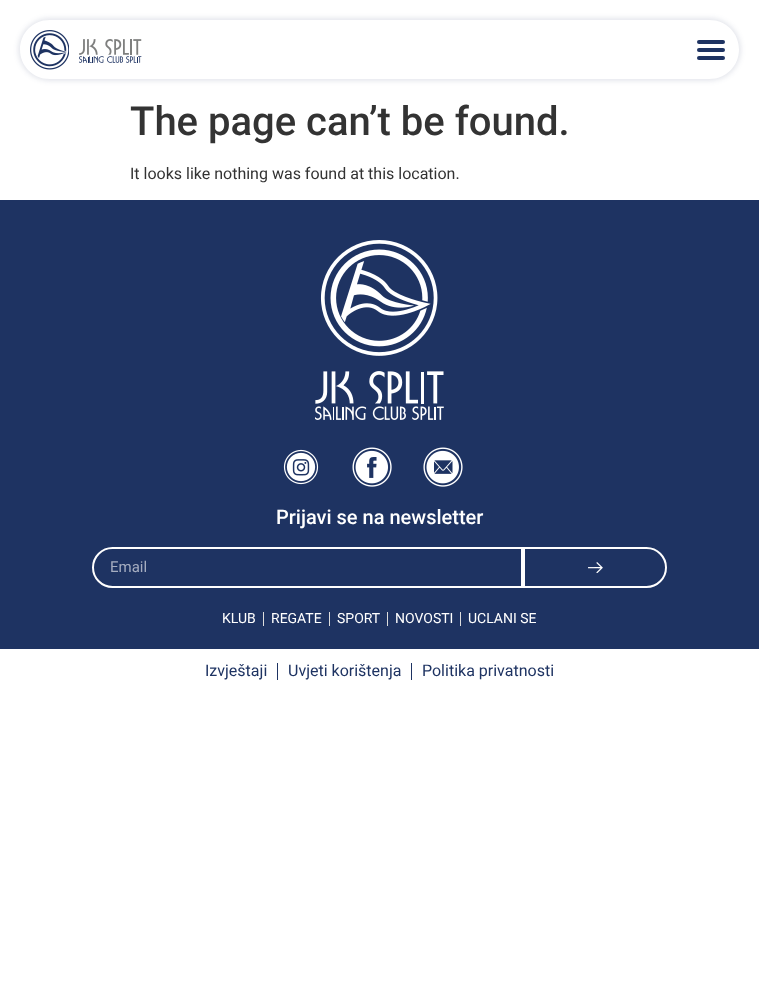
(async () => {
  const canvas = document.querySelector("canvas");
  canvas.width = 759;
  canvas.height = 986;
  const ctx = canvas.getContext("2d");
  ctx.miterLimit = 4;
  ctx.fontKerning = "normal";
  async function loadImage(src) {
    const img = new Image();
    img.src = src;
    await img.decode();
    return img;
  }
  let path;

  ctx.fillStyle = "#ffffff";
  ctx.fillRect(0, 0, 759, 986);
  ctx.save();
  path = new Path2D("M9 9H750V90H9ZM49.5 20H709.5C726 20 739 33 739 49.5C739 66 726 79 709.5 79H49.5C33 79 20 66 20 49.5C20 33 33 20 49.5 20Z");
  ctx.clip(path, "evenodd");
  ctx.fillStyle = "rgba(30, 51, 98, 0.12)";
  ctx.filter = "blur(2.5px)";
  ctx.beginPath();
  ctx.roundRect(18, 18, 723, 63, 31.5);
  ctx.fill();
  ctx.filter = "none";
  ctx.restore();
  ctx.drawImage(await loadImage("img/1.png"), 30, 30, 39, 40);
  ctx.drawImage(await loadImage("img/2.png"), 79, 39, 63, 24);
  ctx.fillStyle = "#1e3362";
  ctx.beginPath();
  ctx.roundRect(697, 40, 28, 4, 2);
  ctx.fill();
  ctx.beginPath();
  ctx.roundRect(697, 48, 28, 4, 2);
  ctx.fill();
  ctx.beginPath();
  ctx.roundRect(697, 56, 28, 4, 2);
  ctx.fill();
  ctx.fillRect(0, 200, 759, 449);
  ctx.drawImage(await loadImage("img/3.png"), 315, 240, 129, 180);
  ctx.drawImage(await loadImage("img/4.png"), 283, 449, 36, 36);
  ctx.drawImage(await loadImage("img/5.png"), 352, 447, 40, 40);
  ctx.drawImage(await loadImage("img/6.png"), 423, 447, 40, 40);
  ctx.beginPath();
  ctx.roundRect(93, 548, 429, 39, [19.5, 0, 0, 19.5]);
  ctx.strokeStyle = "#ffffff";
  ctx.lineWidth = 2;
  ctx.stroke();
  ctx.beginPath();
  ctx.roundRect(524, 548, 142, 39, [0, 19.5, 19.5, 0]);
  ctx.stroke();
  ctx.drawImage(await loadImage("img/7.png"), 588, 562, 15, 11);
  for (const [x, y, w, h, color] of [
    [263, 612, 1, 14, "#dddddd"],
    [329, 612, 1, 14, "#dddddd"],
    [387, 612, 1, 14, "#dddddd"],
    [460, 612, 1, 14, "#dddddd"],
    [277, 663, 1, 17, "#1e3362"],
    [411, 663, 1, 17, "#1e3362"],
  ]) {
    ctx.fillStyle = color;
    ctx.fillRect(x, y, w, h);
  }
  ctx.font = "500 40px Roboto";
  ctx.fillStyle = "#333333";
  ctx.fillText("The page can’t be found.", 130, 135);
  ctx.font = "16px Roboto";
  ctx.fillText("It looks like nothing was found at this location.", 130, 179);
  ctx.font = "500 20px Roboto";
  ctx.fillStyle = "#ffffff";
  ctx.fillText("Prijavi se na newsletter", 276, 524);
  ctx.font = "15px Roboto";
  ctx.fillStyle = "#a5adc0";
  ctx.fillText("Email", 110, 572);
  ctx.font = "14px Roboto";
  ctx.fillStyle = "#ffffff";
  for (const [text, x, y] of [
    ["KLUB", 222, 623],
    ["REGATE", 271, 623],
    ["SPORT", 337, 623],
    ["NOVOSTI", 395, 623],
    ["UCLANI SE", 468, 623],
  ]) {
    ctx.fillText(text, x, y);
  }
  ctx.font = "16px Roboto";
  ctx.fillStyle = "#1e3362";
  for (const [text, x, y] of [
    ["Izvještaji", 205, 676],
    ["Uvjeti korištenja", 288, 676],
    ["Politika privatnosti", 422, 676],
  ]) {
    ctx.fillText(text, x, y);
  }
})();
